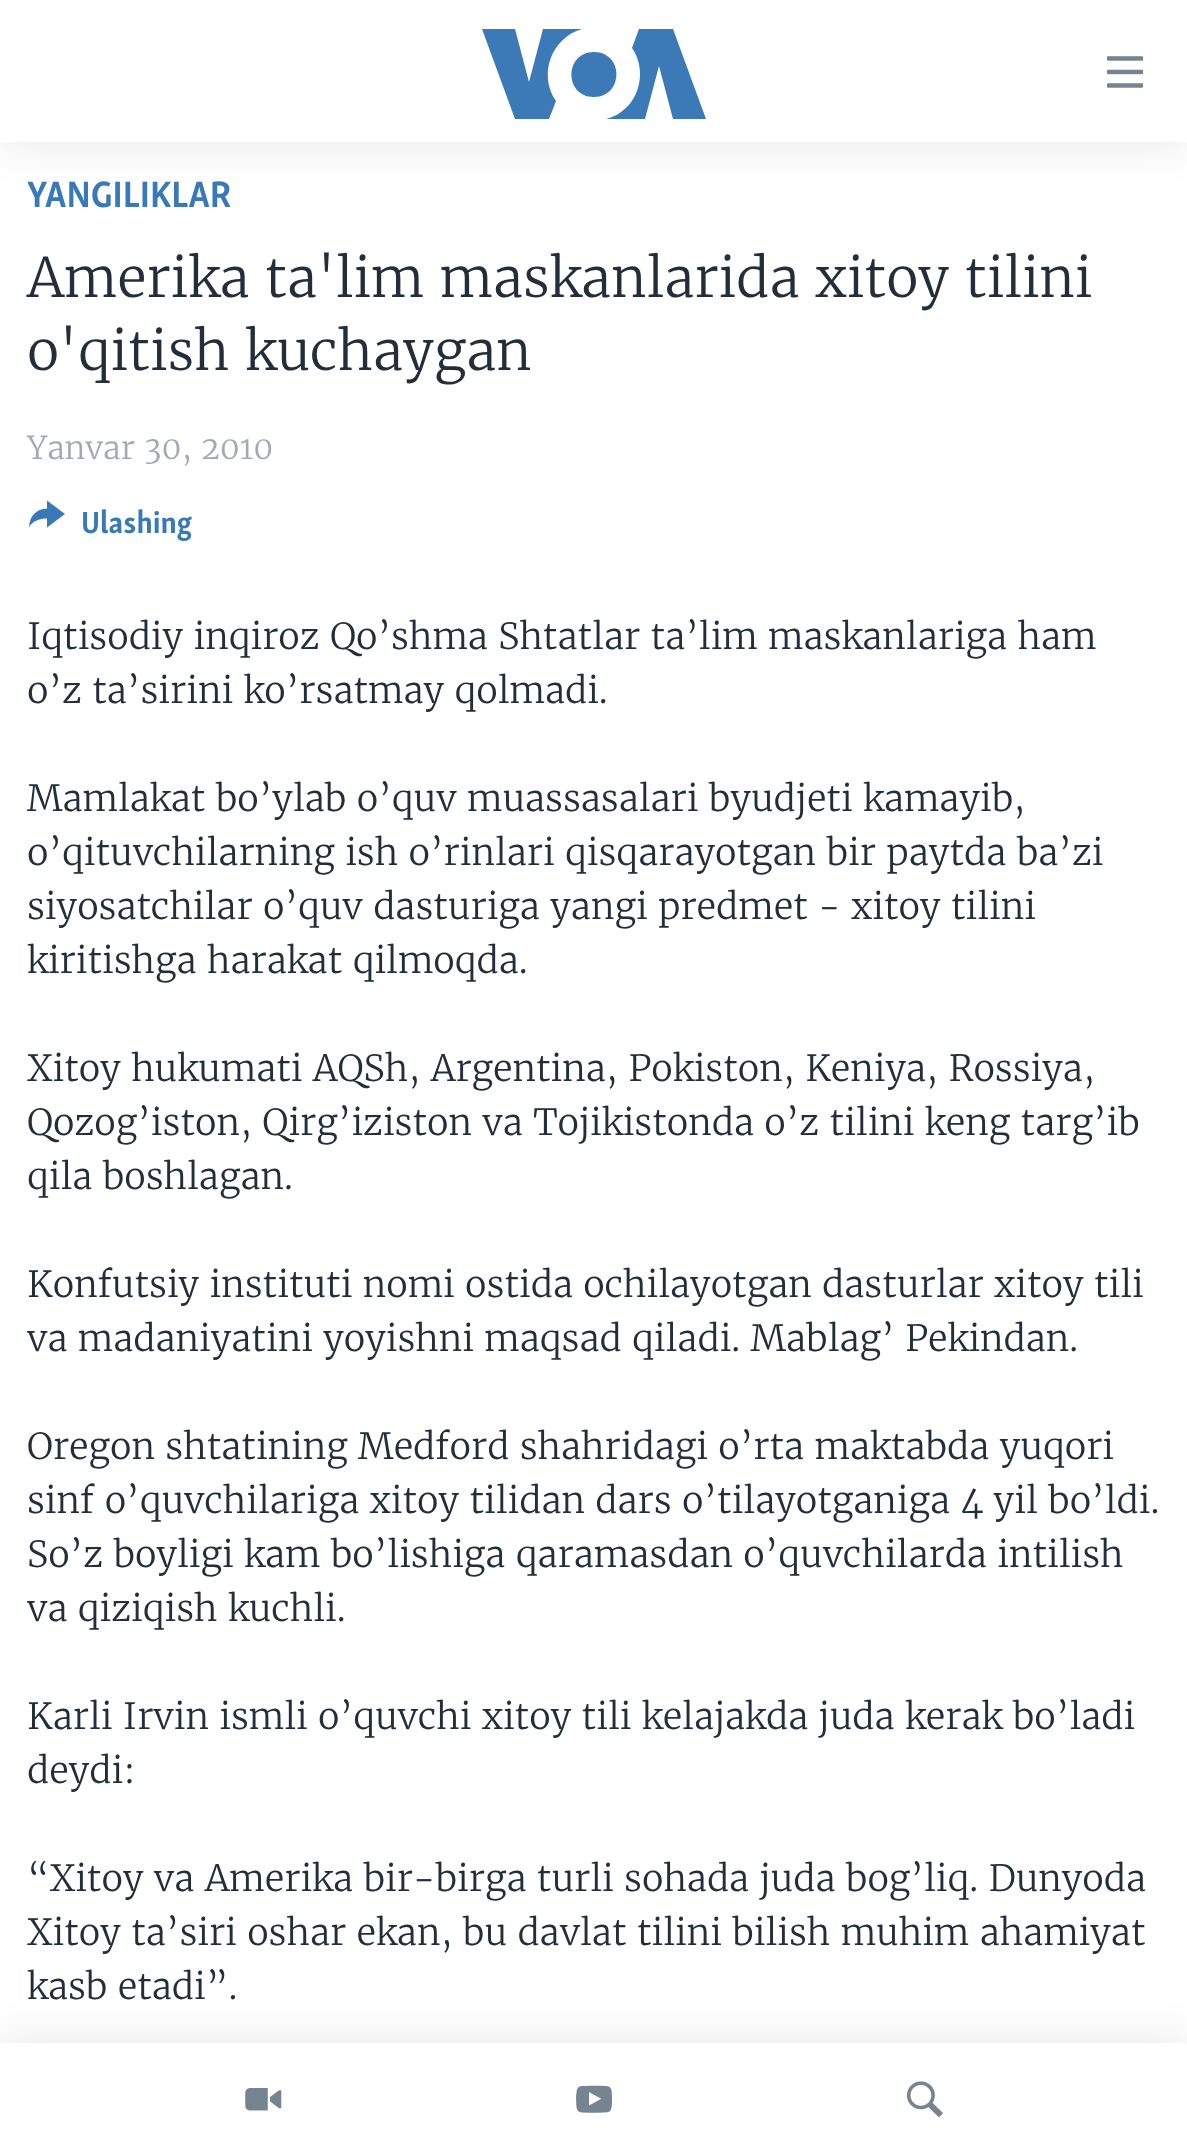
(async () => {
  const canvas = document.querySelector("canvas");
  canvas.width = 1187;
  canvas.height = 2155;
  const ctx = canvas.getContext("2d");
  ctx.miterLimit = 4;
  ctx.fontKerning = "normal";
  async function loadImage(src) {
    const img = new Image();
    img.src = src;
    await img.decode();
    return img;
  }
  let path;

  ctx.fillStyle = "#ffffff";
  ctx.fillRect(0, 0, 1187, 2155);
  ctx.fillStyle = "rgba(0, 0, 0, 0.1)";
  ctx.filter = "blur(22.5px)";
  ctx.beginPath();
  ctx.rect(0, 0, 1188, 142);
  ctx.fill();
  ctx.filter = "none";
  ctx.fillStyle = "#ffffff";
  ctx.fillRect(0, 0, 1187, 142);
  ctx.fillStyle = "#3b79b7";
  path = new Path2D("M556 101L549 119H515L482 29H515L529 82L543 29H582C551 38 538 75 556 101ZM594 52C564 52 564 97 594 97C624 97 624 52 594 52ZM640 74C640 96 626 114 606 119H645L659 66L673 119H706L673 29H639L632 48C637 55 640 64 640 74Z");
  ctx.fill(path);
  ctx.drawImage(await loadImage("img/1.png"), 1107, 56, 36, 32);
  ctx.fillStyle = "rgba(0, 0, 0, 0.1)";
  ctx.filter = "blur(22.5px)";
  ctx.beginPath();
  ctx.rect(0, 2043, 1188, 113);
  ctx.fill();
  ctx.filter = "none";
  ctx.fillStyle = "#ffffff";
  ctx.fillRect(0, 2043, 1187, 112);
  ctx.drawImage(await loadImage("img/2.png"), 245, 2088, 37, 23);
  ctx.drawImage(await loadImage("img/3.png"), 576, 2085, 36, 28);
  ctx.drawImage(await loadImage("img/4.png"), 906, 2081, 37, 37);
  ctx.fillStyle = "#3a79b7";
  path = new Path2D("M29 527.5C29.5 516 36 509 47 508.5V500.5L65 514L47 527.5V518.5C40.5 518.5 32.5 520.5 29 527.5Z");
  ctx.fill(path);
  ctx.font = "bold 37.75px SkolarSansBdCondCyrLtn";
  ctx.fillText("YANGILIKLAR", 27, 207);
  ctx.font = "300 54px Merriweather";
  ctx.fillStyle = "#222f3a";
  ctx.fillText("Amerika ta'lim maskanlarida xitoy tilini", 27, 297);
  ctx.fillText("o'qitish kuchaygan", 27, 370);
  ctx.font = "300 31.5px Merriweather";
  ctx.fillStyle = "#a1aab4";
  ctx.fillText("Yanvar 30, 2010", 27, 459);
  ctx.font = "bold 31.5px SkolarSansBdCondCyrLtn";
  ctx.fillStyle = "#3a79b7";
  ctx.fillText("Ulashing", 81, 533);
  ctx.font = "300 36px Merriweather";
  ctx.fillStyle = "#222f3a";
  for (const [text, x, y] of [
    ["Iqtisodiy inqiroz Qo’shma Shtatlar ta’lim maskanlariga ham", 27, 649],
    ["o’z ta’sirini ko’rsatmay qolmadi.", 27, 703],
    ["Mamlakat bo’ylab o’quv muassasalari byudjeti kamayib,", 27, 811],
    ["o’qituvchilarning ish o’rinlari qisqarayotgan bir paytda ba’zi", 27, 865],
    ["siyosatchilar o’quv dasturiga yangi predmet - xitoy tilini", 27, 919],
    ["kiritishga harakat qilmoqda.", 27, 973],
    ["Xitoy hukumati AQSh, Argentina, Pokiston, Keniya, Rossiya,", 27, 1081],
    ["Qozog’iston, Qirg’iziston va Tojikistonda o’z tilini keng targ’ib", 27, 1135],
    ["qila boshlagan.", 27, 1189],
    ["Konfutsiy instituti nomi ostida ochilayotgan dasturlar xitoy tili", 27, 1297],
    ["va madaniyatini yoyishni maqsad qiladi. Mablag’ Pekindan.", 27, 1351],
    ["Oregon shtatining Medford shahridagi o’rta maktabda yuqori", 27, 1459],
    ["sinf o’quvchilariga xitoy tilidan dars o’tilayotganiga 4 yil bo’ldi.", 27, 1513],
    ["So’z boyligi kam bo’lishiga qaramasdan o’quvchilarda intilish", 27, 1567],
    ["va qiziqish kuchli.", 27, 1621],
    ["Karli Irvin ismli o’quvchi xitoy tili kelajakda juda kerak bo’ladi", 27, 1729],
    ["deydi:", 27, 1783],
    ["“Xitoy va Amerika bir-birga turli sohada juda bog’liq. Dunyoda", 27, 1891],
    ["Xitoy ta’siri oshar ekan, bu davlat tilini bilish muhim ahamiyat", 27, 1945],
    ["kasb etadi”.", 27, 1999],
  ]) {
    ctx.fillText(text, x, y);
  }
})();
